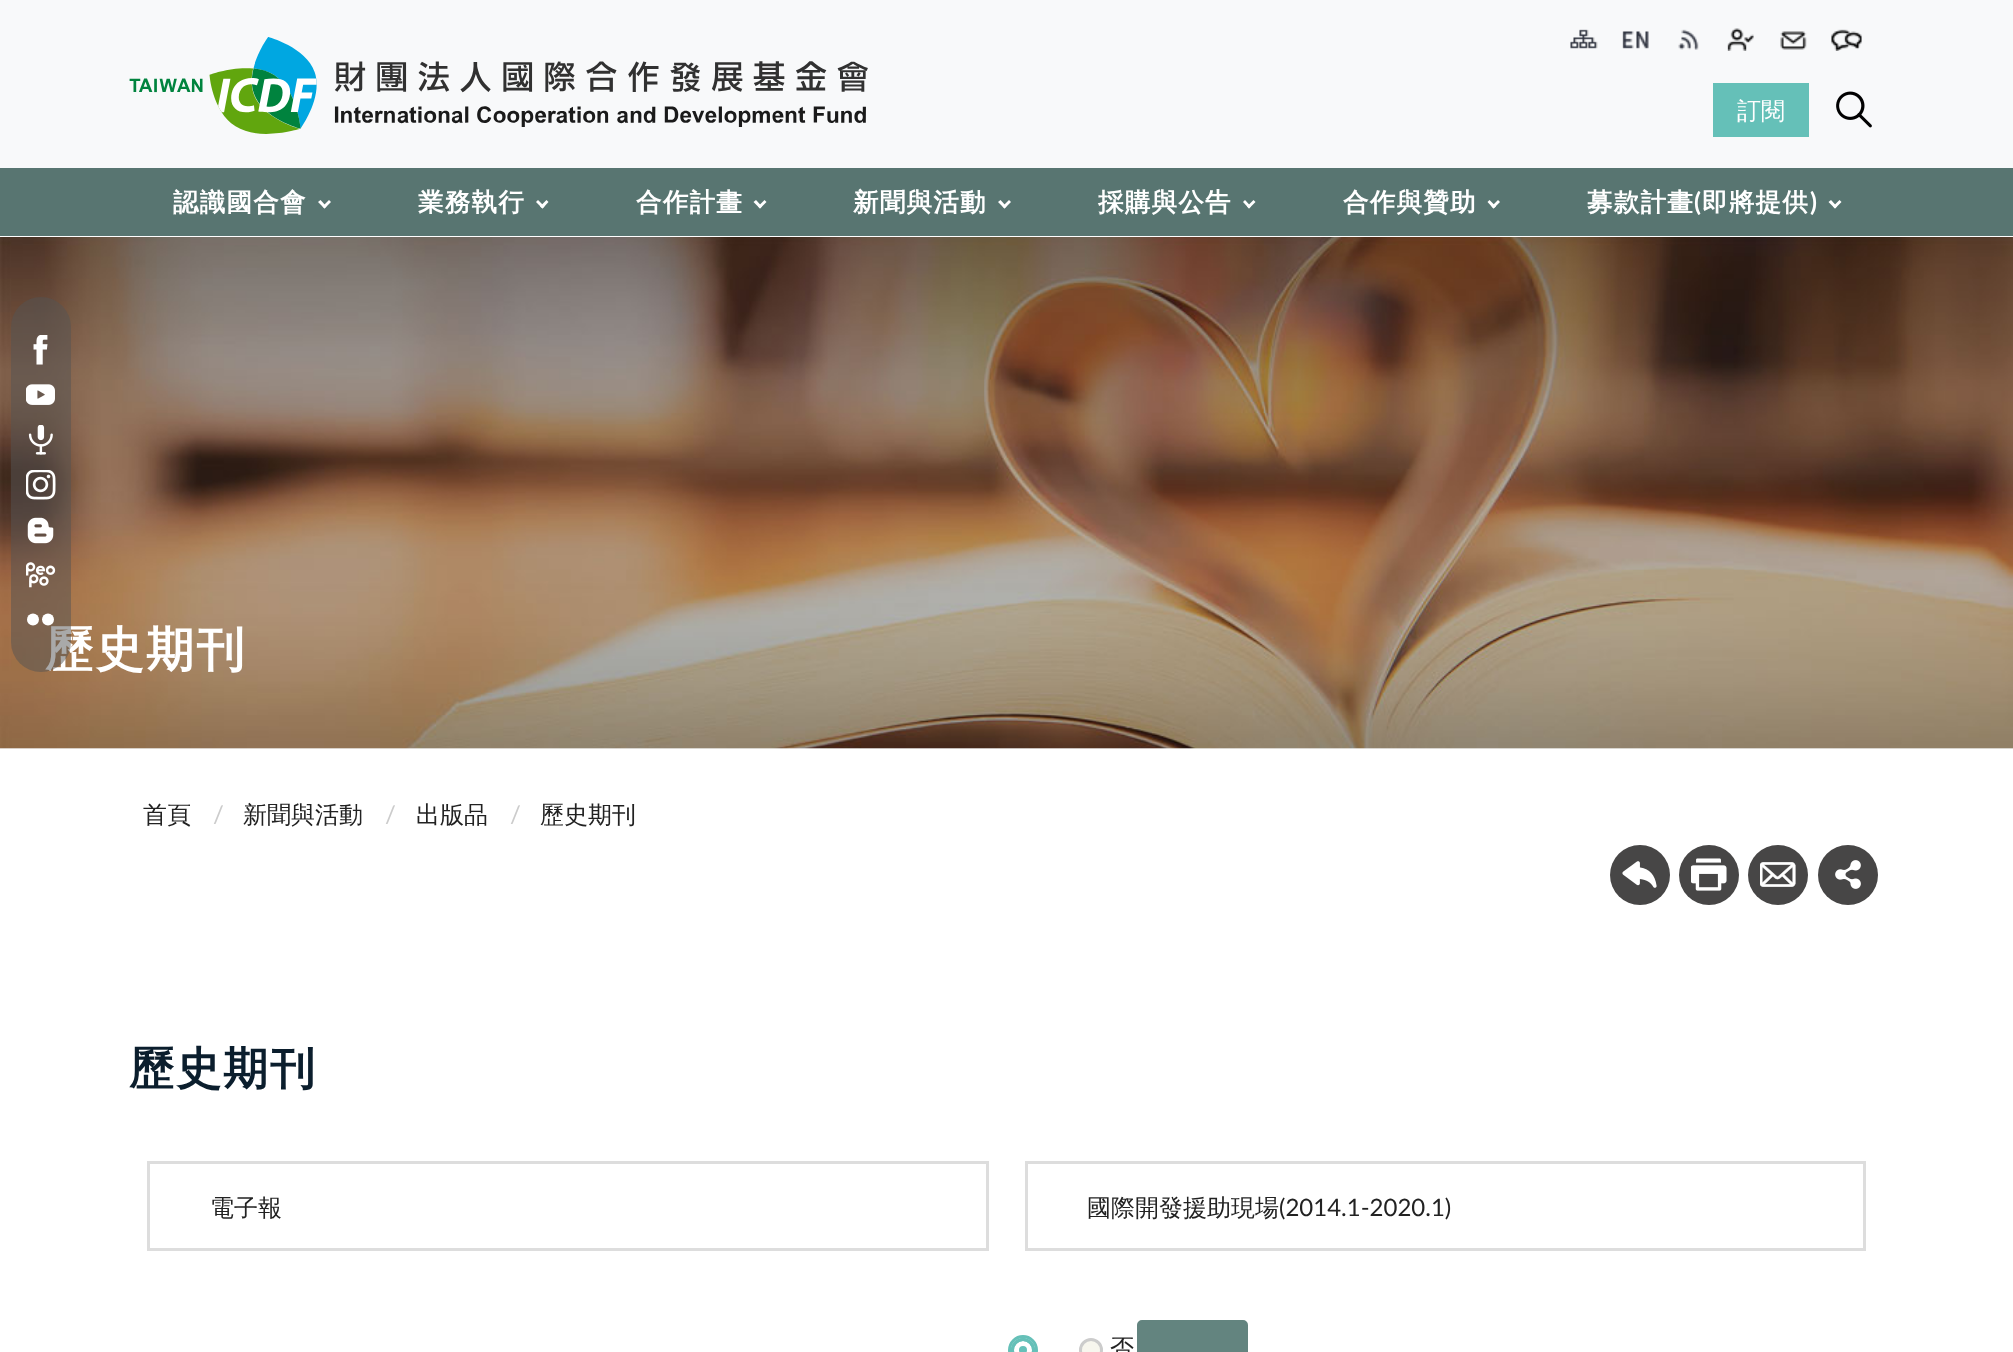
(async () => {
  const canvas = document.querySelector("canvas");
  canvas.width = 2013;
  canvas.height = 1352;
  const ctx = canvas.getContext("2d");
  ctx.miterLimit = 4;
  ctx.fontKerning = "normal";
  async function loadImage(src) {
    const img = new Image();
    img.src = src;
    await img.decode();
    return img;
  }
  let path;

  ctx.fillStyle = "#ffffff";
  ctx.fillRect(0, 0, 2013, 1352);
  ctx.fillStyle = "#f8f9fa";
  ctx.fillRect(0, 0, 2013, 168);
  ctx.drawImage(await loadImage("img/1.png"), 129, 37, 739, 97);
  ctx.drawImage(await loadImage("img/2.png"), 1570, 29, 28, 20);
  ctx.drawImage(await loadImage("img/3.png"), 1622, 31, 27, 18);
  ctx.drawImage(await loadImage("img/4.png"), 1678, 29, 21, 21);
  ctx.drawImage(await loadImage("img/5.png"), 1727, 28, 27, 23);
  ctx.drawImage(await loadImage("img/6.png"), 1780, 31, 27, 19);
  ctx.drawImage(await loadImage("img/7.png"), 1831, 29, 31, 22);
  ctx.fillStyle = "#65c0b8";
  ctx.fillRect(1713, 83, 96, 54);
  ctx.drawImage(await loadImage("img/8.png"), 1836, 91, 36, 37);
  ctx.fillStyle = "#587571";
  ctx.fillRect(0, 168, 2013, 68);
  ctx.fillStyle = "#ffffff";
  path = new Path2D("M331 202L324.5 208.5L322.5 206.5L329 200Z");
  ctx.fill(path);
  path = new Path2D("M326.5 206.5L324.5 208.5L318 202L320.5 200Z");
  ctx.fill(path);
  path = new Path2D("M548.5 202L542.5 208.5L540 206.5L546.5 200Z");
  ctx.fill(path);
  path = new Path2D("M544.5 206.5L542.5 208.5L536 202L538 200Z");
  ctx.fill(path);
  path = new Path2D("M766.5 202L760 208.5L758 206.5L764.5 200Z");
  ctx.fill(path);
  path = new Path2D("M762 206.5L760 208.5L753.5 202L756 200Z");
  ctx.fill(path);
  path = new Path2D("M1011 202L1004.5 208.5L1002.5 206.5L1009 200Z");
  ctx.fill(path);
  path = new Path2D("M1006.5 206.5L1004.5 208.5L998 202L1000.5 200Z");
  ctx.fill(path);
  path = new Path2D("M1255.5 202L1249 208.5L1247 206.5L1253.5 200Z");
  ctx.fill(path);
  path = new Path2D("M1251 206.5L1249 208.5L1243 202L1245 200Z");
  ctx.fill(path);
  path = new Path2D("M1500 202L1493.5 208.5L1491.5 206.5L1498 200Z");
  ctx.fill(path);
  path = new Path2D("M1496 206.5L1493.5 208.5L1487.5 202L1489.5 200Z");
  ctx.fill(path);
  path = new Path2D("M1841.5 202L1835 208.5L1833 206.5L1839.5 200Z");
  ctx.fill(path);
  path = new Path2D("M1837 206.5L1835 208.5L1828.5 202L1831 200Z");
  ctx.fill(path);
  ctx.fillStyle = "#f1f1f1";
  ctx.fillRect(0, 748, 2013, 1);
  ctx.drawImage(await loadImage("img/15.png"), 0, 237, 2013, 512);
  ctx.fillStyle = "#474646";
  ctx.beginPath();
  ctx.arc(1640, 875, 30, 0, Math.PI * 2);
  ctx.fill();
  ctx.drawImage(await loadImage("img/16.png"), 1622, 861, 35, 27);
  ctx.beginPath();
  ctx.arc(1709, 875, 30, 0, Math.PI * 2);
  ctx.fill();
  ctx.drawImage(await loadImage("img/17.png"), 1691, 858, 36, 33);
  ctx.beginPath();
  ctx.arc(1778, 875, 30, 0, Math.PI * 2);
  ctx.fill();
  ctx.drawImage(await loadImage("img/18.png"), 1760, 862, 36, 25);
  ctx.beginPath();
  ctx.arc(1848, 875, 30, 0, Math.PI * 2);
  ctx.fill();
  ctx.drawImage(await loadImage("img/19.png"), 1835, 860, 26, 29);
  ctx.strokeStyle = "#dddddd";
  ctx.lineWidth = 3;
  ctx.strokeRect(148.5, 1162.5, 839, 87);
  ctx.strokeRect(1026.5, 1162.5, 838, 87);
  ctx.beginPath();
  ctx.arc(1023, 1350, 13.5, 0, Math.PI * 2);
  ctx.strokeStyle = "#65c0b8";
  ctx.stroke();
  ctx.fillStyle = "#65c0b8";
  ctx.beginPath();
  ctx.arc(1023, 1350, 12, 0, Math.PI * 2);
  ctx.fill();
  ctx.beginPath();
  ctx.arc(1023, 1350, 6.5, 0, Math.PI * 2);
  ctx.strokeStyle = "#ffffff";
  ctx.lineWidth = 5;
  ctx.stroke();
  ctx.beginPath();
  ctx.arc(1023, 1350, 10.5, 0, Math.PI * 2);
  ctx.strokeStyle = "#65c0b8";
  ctx.lineWidth = 3;
  ctx.stroke();
  ctx.fillStyle = "#f7f6ee";
  ctx.beginPath();
  ctx.arc(1091, 1350, 10.5, 0, Math.PI * 2);
  ctx.fill();
  ctx.strokeStyle = "#cccccc";
  ctx.stroke();
  ctx.fillStyle = "#63847f";
  ctx.beginPath();
  ctx.roundRect(1138, 1321, 109, 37, 4);
  ctx.fill();
  ctx.strokeStyle = "#63847f";
  ctx.lineWidth = 2;
  ctx.stroke();
  ctx.font = "500 24px WenQuanYi Zen Hei";
  ctx.fillStyle = "#ffffff";
  ctx.fillText("訂閱", 1737, 119);
  ctx.letterSpacing = "1.25px";
  ctx.font = "bold 25.5px WenQuanYi Zen Hei";
  for (const [text, x, y] of [
    ["認識國合會", 173, 211],
    ["業務執行", 418, 211],
    ["合作計畫", 636, 211],
    ["新聞與活動", 853, 211],
    ["採購與公告", 1098, 211],
    ["合作與贊助", 1343, 211],
    ["募款計畫", 1587, 211],
  ]) {
    ctx.fillText(text, x, y);
  }
  ctx.font = "bold 25.5px Lato";
  ctx.fillText("(", 1694, 211);
  ctx.font = "bold 25.5px WenQuanYi Zen Hei";
  ctx.fillText("即將提供", 1702, 211);
  ctx.font = "bold 25.5px Lato";
  ctx.fillText(")", 1810, 211);
  ctx.letterSpacing = "2.5px";
  ctx.font = "bold 48px WenQuanYi Zen Hei";
  ctx.fillText("歷史期刊", 45, 666);
  ctx.fillStyle = "rgba(83, 83, 83, 0.5)";
  ctx.beginPath();
  ctx.roundRect(11, 297, 60, 375, 30);
  ctx.fill();
  ctx.fillStyle = "#ffffff";
  ctx.beginPath();
  ctx.arc(48, 619.5, 6, 0, Math.PI * 2);
  ctx.fill();
  ctx.beginPath();
  ctx.arc(33, 619.5, 6, 0, Math.PI * 2);
  ctx.fill();
  ctx.drawImage(await loadImage("img/14.png"), 26, 562, 30, 26);
  ctx.drawImage(await loadImage("img/13.png"), 27, 517, 27, 27);
  ctx.drawImage(await loadImage("img/12.png"), 26, 470, 30, 30);
  ctx.drawImage(await loadImage("img/11.png"), 28, 425, 25, 30);
  ctx.drawImage(await loadImage("img/10.png"), 26, 384, 29, 21);
  ctx.drawImage(await loadImage("img/9.png"), 33, 335, 15, 30);
  ctx.letterSpacing = "0px";
  ctx.font = "500 24px WenQuanYi Zen Hei";
  ctx.fillStyle = "#222222";
  ctx.fillText("首頁", 143, 823);
  ctx.font = "24px Lato";
  ctx.fillStyle = "#cccccc";
  ctx.fillText("/", 213, 823);
  ctx.font = "500 24px WenQuanYi Zen Hei";
  ctx.fillStyle = "#222222";
  ctx.fillText("新聞與活動", 243, 823);
  ctx.font = "24px Lato";
  ctx.fillStyle = "#cccccc";
  ctx.fillText("/", 385, 823);
  ctx.font = "500 24px WenQuanYi Zen Hei";
  ctx.fillStyle = "#222222";
  ctx.fillText("出版品", 416, 823);
  ctx.font = "24px Lato";
  ctx.fillStyle = "#cccccc";
  ctx.fillText("/", 510, 823);
  ctx.font = "500 24px WenQuanYi Zen Hei";
  ctx.fillStyle = "#222222";
  ctx.fillText("歷史期刊", 540, 823);
  ctx.letterSpacing = "2px";
  ctx.font = "bold 45px WenQuanYi Zen Hei";
  ctx.fillStyle = "#0b1e2d";
  ctx.fillText("歷史期刊", 129, 1084);
  ctx.letterSpacing = "0px";
  ctx.font = "500 24px WenQuanYi Zen Hei";
  ctx.fillStyle = "#222222";
  ctx.fillText("電子報", 210, 1216);
  ctx.fillText("國際開發援助現場", 1087, 1216);
  ctx.font = "24px Lato";
  ctx.fillText("(2014.1-2020.1)", 1279, 1216);
  ctx.font = "500 24px WenQuanYi Zen Hei";
  ctx.fillText("否", 1110, 1356);
})();
